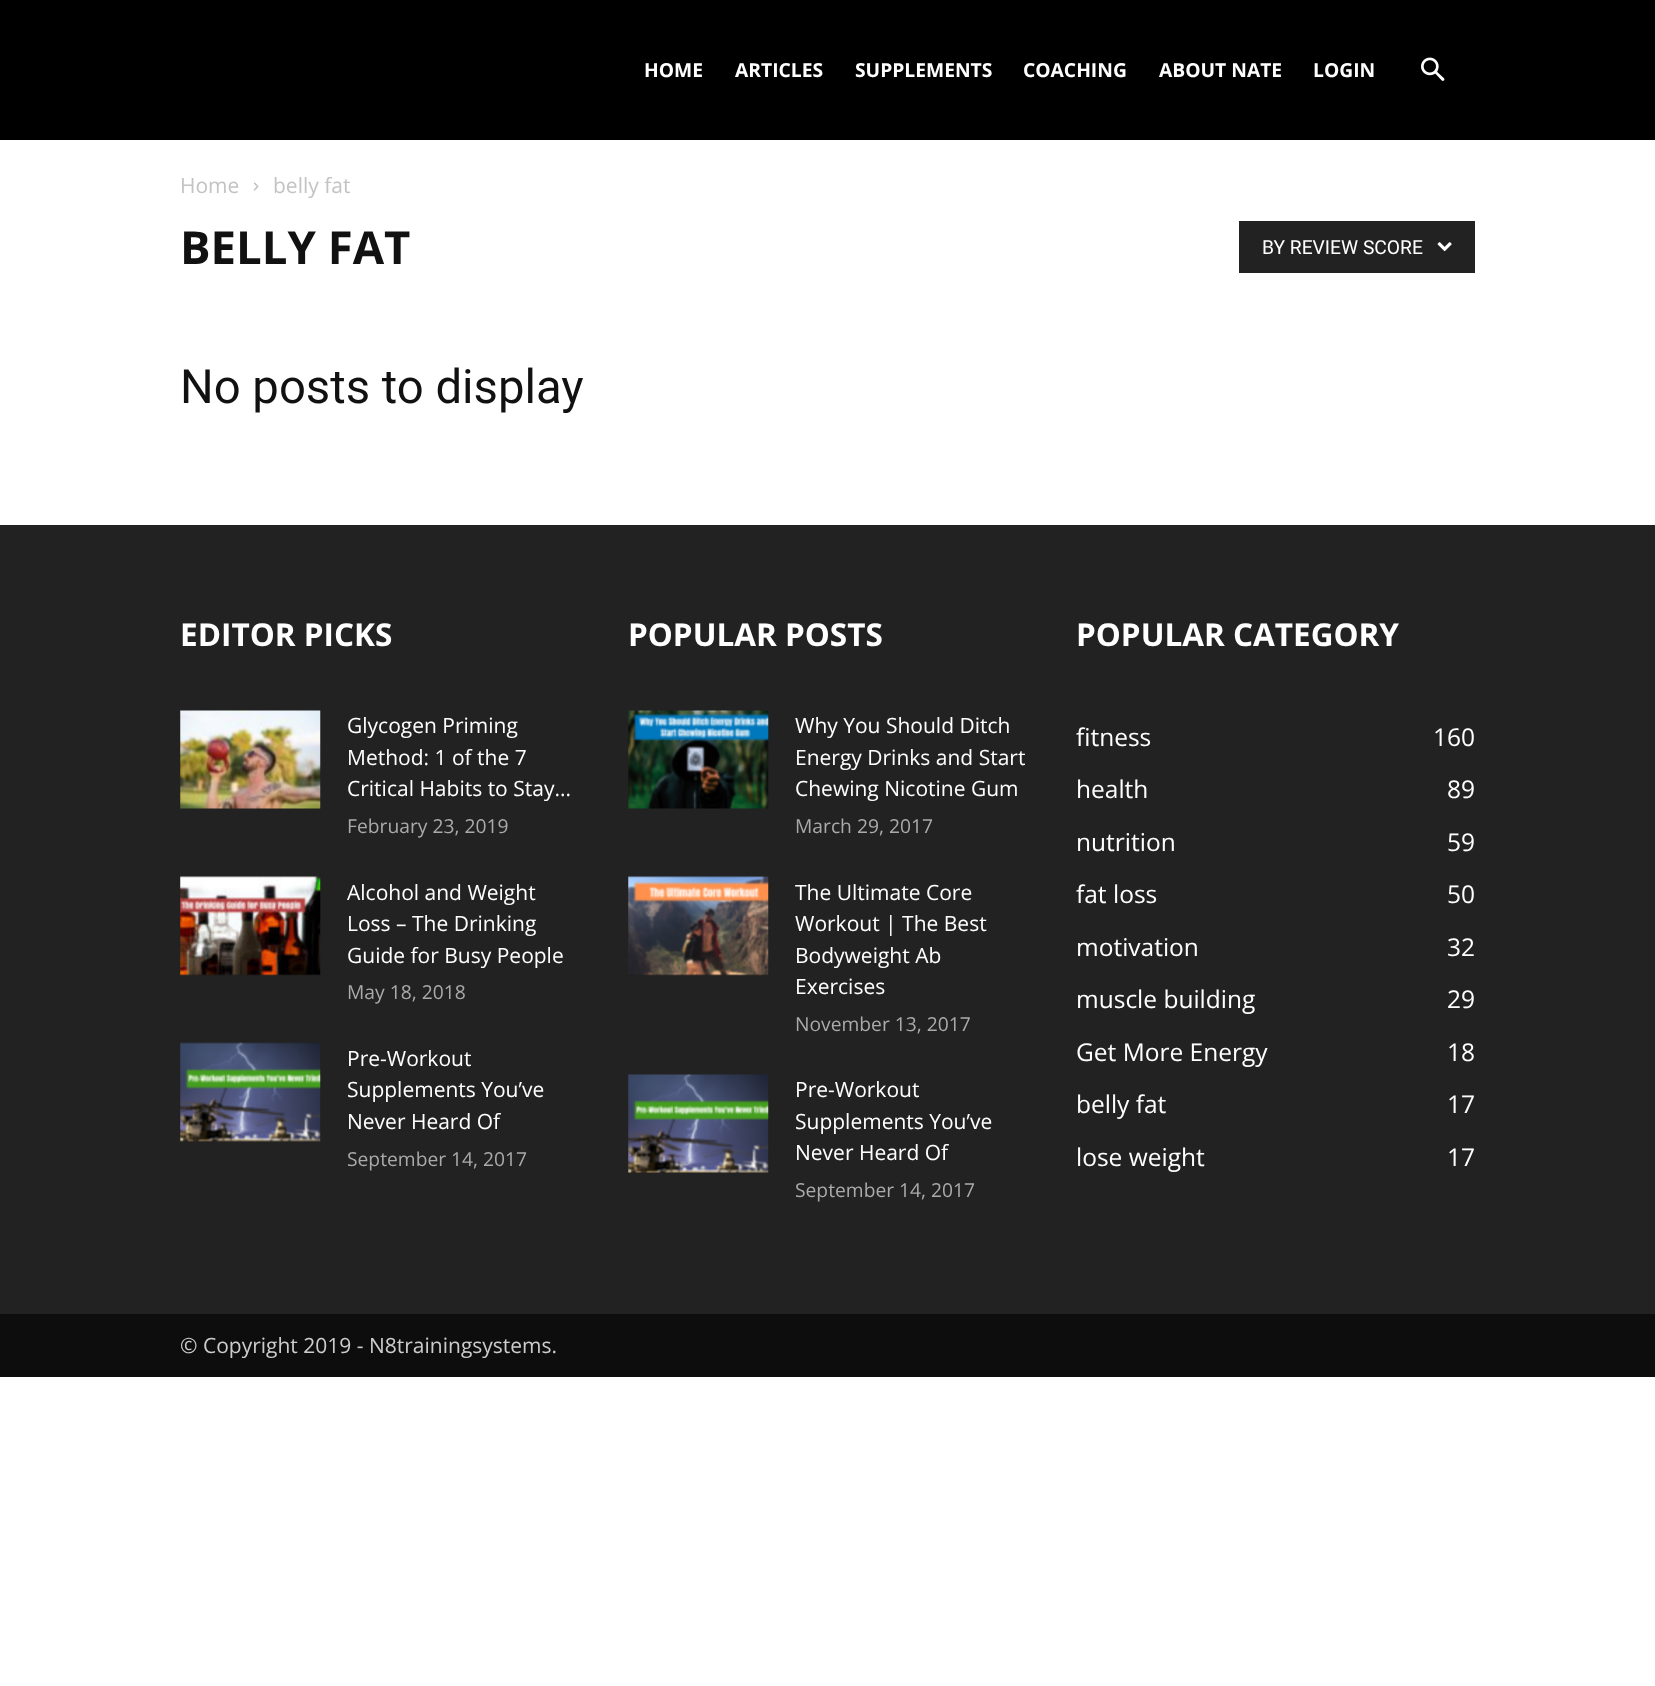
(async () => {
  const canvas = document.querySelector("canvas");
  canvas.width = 1655;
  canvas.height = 1686;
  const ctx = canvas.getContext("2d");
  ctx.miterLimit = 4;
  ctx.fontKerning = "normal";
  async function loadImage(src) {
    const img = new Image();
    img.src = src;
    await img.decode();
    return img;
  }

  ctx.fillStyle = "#ffffff";
  ctx.fillRect(0, 0, 1655, 1686);
  ctx.fillStyle = "#000000";
  ctx.fillRect(0, 0, 1655, 140);
  ctx.drawImage(await loadImage("img/1.png"), 1421, 57, 24, 24);
  ctx.drawImage(await loadImage("img/2.png"), 253, 182, 6, 9);
  ctx.fillStyle = "#222222";
  ctx.fillRect(1239, 221, 236, 52);
  ctx.drawImage(await loadImage("img/3.png"), 1437, 242, 15, 10);
  ctx.fillRect(0, 525, 1655, 789);
  ctx.drawImage(await loadImage("img/4.png"), 180, 710, 141, 99);
  ctx.drawImage(await loadImage("img/5.png"), 180, 876, 141, 100);
  ctx.drawImage(await loadImage("img/6.png"), 180, 1042, 141, 100);
  ctx.drawImage(await loadImage("img/7.png"), 628, 710, 141, 99);
  ctx.drawImage(await loadImage("img/8.png"), 628, 876, 141, 100);
  ctx.drawImage(await loadImage("img/9.png"), 628, 1074, 141, 99);
  ctx.fillStyle = "#0d0d0d";
  ctx.fillRect(0, 1314, 1655, 63);
  ctx.font = "bold 19.25px Open Sans";
  ctx.fillStyle = "#ffffff";
  for (const [text, x, y] of [
    ["HOME", 644, 77],
    ["ARTICLES", 735, 77],
    ["SUPPLEMENTS", 855, 77],
    ["COACHING", 1023, 77],
    ["ABOUT NATE", 1159, 77],
    ["LOGIN", 1313, 77],
  ]) {
    ctx.fillText(text, x, y);
  }
  ctx.font = "21px Open Sans";
  ctx.fillStyle = "#c3c3c3";
  ctx.fillText("Home", 180, 193);
  ctx.fillText("belly fat", 273, 193);
  ctx.font = "bold 45.5px Open Sans";
  ctx.fillStyle = "#111111";
  ctx.fillText("BELLY FAT", 180, 264);
  ctx.font = "19.25px Roboto";
  ctx.fillStyle = "#ffffff";
  ctx.fillText("BY REVIEW SCORE", 1262, 254);
  ctx.font = "47.25px Roboto";
  ctx.fillStyle = "#111111";
  ctx.fillText("No posts to display", 180, 403);
  ctx.font = "bold 31.5px Open Sans";
  ctx.fillStyle = "#ffffff";
  ctx.fillText("EDITOR PICKS", 180, 646);
  ctx.font = "21px Open Sans";
  for (const [text, x, y] of [
    ["Glycogen Priming", 347, 733],
    ["Method: 1 of the 7", 347, 765],
    ["Critical Habits to Stay...", 347, 796],
  ]) {
    ctx.fillText(text, x, y);
  }
  ctx.font = "19.25px Open Sans";
  ctx.fillStyle = "#aaaaaa";
  ctx.fillText("February 23, 2019", 347, 833);
  ctx.font = "21px Open Sans";
  ctx.fillStyle = "#ffffff";
  for (const [text, x, y] of [
    ["Alcohol and Weight", 347, 900],
    ["Loss – The Drinking", 347, 931],
    ["Guide for Busy People", 347, 963],
  ]) {
    ctx.fillText(text, x, y);
  }
  ctx.font = "19.25px Open Sans";
  ctx.fillStyle = "#aaaaaa";
  ctx.fillText("May 18, 2018", 347, 999);
  ctx.font = "21px Open Sans";
  ctx.fillStyle = "#ffffff";
  for (const [text, x, y] of [
    ["Pre-Workout", 347, 1066],
    ["Supplements You’ve", 347, 1097],
    ["Never Heard Of", 347, 1129],
  ]) {
    ctx.fillText(text, x, y);
  }
  ctx.font = "19.25px Open Sans";
  ctx.fillStyle = "#aaaaaa";
  ctx.fillText("September 14, 2017", 347, 1166);
  ctx.font = "bold 31.5px Open Sans";
  ctx.fillStyle = "#ffffff";
  ctx.fillText("POPULAR POSTS", 628, 646);
  ctx.font = "21px Open Sans";
  for (const [text, x, y] of [
    ["Why You Should Ditch", 795, 733],
    ["Energy Drinks and Start", 795, 765],
    ["Chewing Nicotine Gum", 795, 796],
  ]) {
    ctx.fillText(text, x, y);
  }
  ctx.font = "19.25px Open Sans";
  ctx.fillStyle = "#aaaaaa";
  ctx.fillText("March 29, 2017", 795, 833);
  ctx.font = "21px Open Sans";
  ctx.fillStyle = "#ffffff";
  for (const [text, x, y] of [
    ["The Ultimate Core", 795, 900],
    ["Workout | The Best", 795, 931],
    ["Bodyweight Ab", 795, 963],
    ["Exercises", 795, 994],
  ]) {
    ctx.fillText(text, x, y);
  }
  ctx.font = "19.25px Open Sans";
  ctx.fillStyle = "#aaaaaa";
  ctx.fillText("November 13, 2017", 795, 1031);
  ctx.font = "21px Open Sans";
  ctx.fillStyle = "#ffffff";
  for (const [text, x, y] of [
    ["Pre-Workout", 795, 1097],
    ["Supplements You’ve", 795, 1129],
    ["Never Heard Of", 795, 1160],
  ]) {
    ctx.fillText(text, x, y);
  }
  ctx.font = "19.25px Open Sans";
  ctx.fillStyle = "#aaaaaa";
  ctx.fillText("September 14, 2017", 795, 1197);
  ctx.font = "bold 31.5px Open Sans";
  ctx.fillStyle = "#ffffff";
  ctx.fillText("POPULAR CATEGORY", 1076, 646);
  ctx.font = "24.5px Open Sans";
  for (const [text, x, y] of [
    ["fitness", 1076, 746],
    ["160", 1433, 746],
    ["health", 1076, 798],
    ["89", 1447, 798],
    ["nutrition", 1076, 851],
    ["59", 1447, 851],
    ["fat loss", 1076, 903],
    ["50", 1447, 903],
    ["motivation", 1076, 956],
    ["32", 1447, 956],
    ["muscle building", 1076, 1008],
    ["29", 1447, 1008],
    ["Get More Energy", 1076, 1061],
    ["18", 1447, 1061],
    ["belly fat", 1076, 1113],
    ["17", 1447, 1113],
    ["lose weight", 1076, 1166],
    ["17", 1447, 1166],
  ]) {
    ctx.fillText(text, x, y);
  }
  ctx.font = "21px Open Sans";
  ctx.fillStyle = "#cccccc";
  ctx.fillText("© Copyright 2019 - N8trainingsystems.", 180, 1353);
})();
